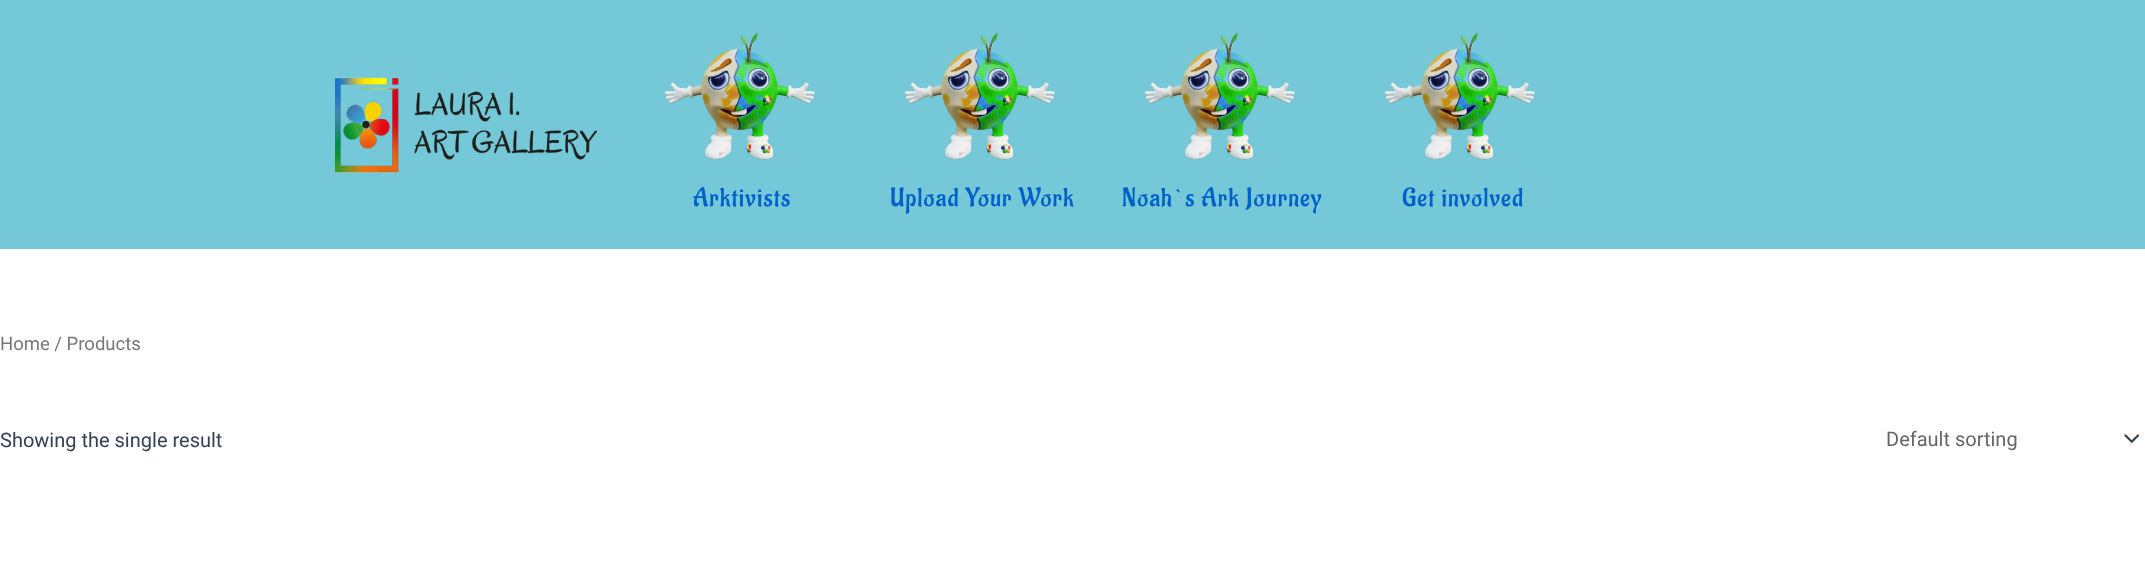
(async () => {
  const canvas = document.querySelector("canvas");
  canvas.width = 2145;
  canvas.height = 570;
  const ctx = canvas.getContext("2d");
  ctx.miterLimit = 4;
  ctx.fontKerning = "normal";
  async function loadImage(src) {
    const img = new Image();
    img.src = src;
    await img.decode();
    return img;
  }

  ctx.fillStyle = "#ffffff";
  ctx.fillRect(0, 0, 2145, 570);
  ctx.fillStyle = "#75c8d7";
  ctx.fillRect(0, 0, 2145, 249);
  ctx.drawImage(await loadImage("img/1.png"), 335, 77, 263, 96);
  ctx.drawImage(await loadImage("img/2.png"), 664, 33, 151, 127);
  ctx.drawImage(await loadImage("img/3.png"), 904, 33, 151, 127);
  ctx.drawImage(await loadImage("img/2.png"), 1144, 33, 151, 127);
  ctx.drawImage(await loadImage("img/2.png"), 1384, 33, 151, 127);
  ctx.drawImage(await loadImage("img/4.png"), 2124, 434, 16, 10);
  ctx.letterSpacing = "1.25px";
  ctx.font = "26.25px Aladin";
  ctx.fillStyle = "#0261c9";
  for (const [text, x, y] of [
    ["Arktivists", 693, 206],
    ["Upload Your Work", 890, 206],
    ["Noah`s Ark Journey", 1122, 206],
    ["Get involved", 1402, 206],
  ]) {
    ctx.fillText(text, x, y);
  }
  ctx.letterSpacing = "0px";
  ctx.font = "18.5px Roboto";
  ctx.fillStyle = "#777777";
  ctx.fillText("Home / Products", 0, 350);
  ctx.font = "20px Roboto";
  ctx.fillStyle = "#334155";
  ctx.fillText("Showing the single result", 0, 447);
  ctx.fillStyle = "#666666";
  ctx.fillText("Default sorting", 1886, 446);
})();
